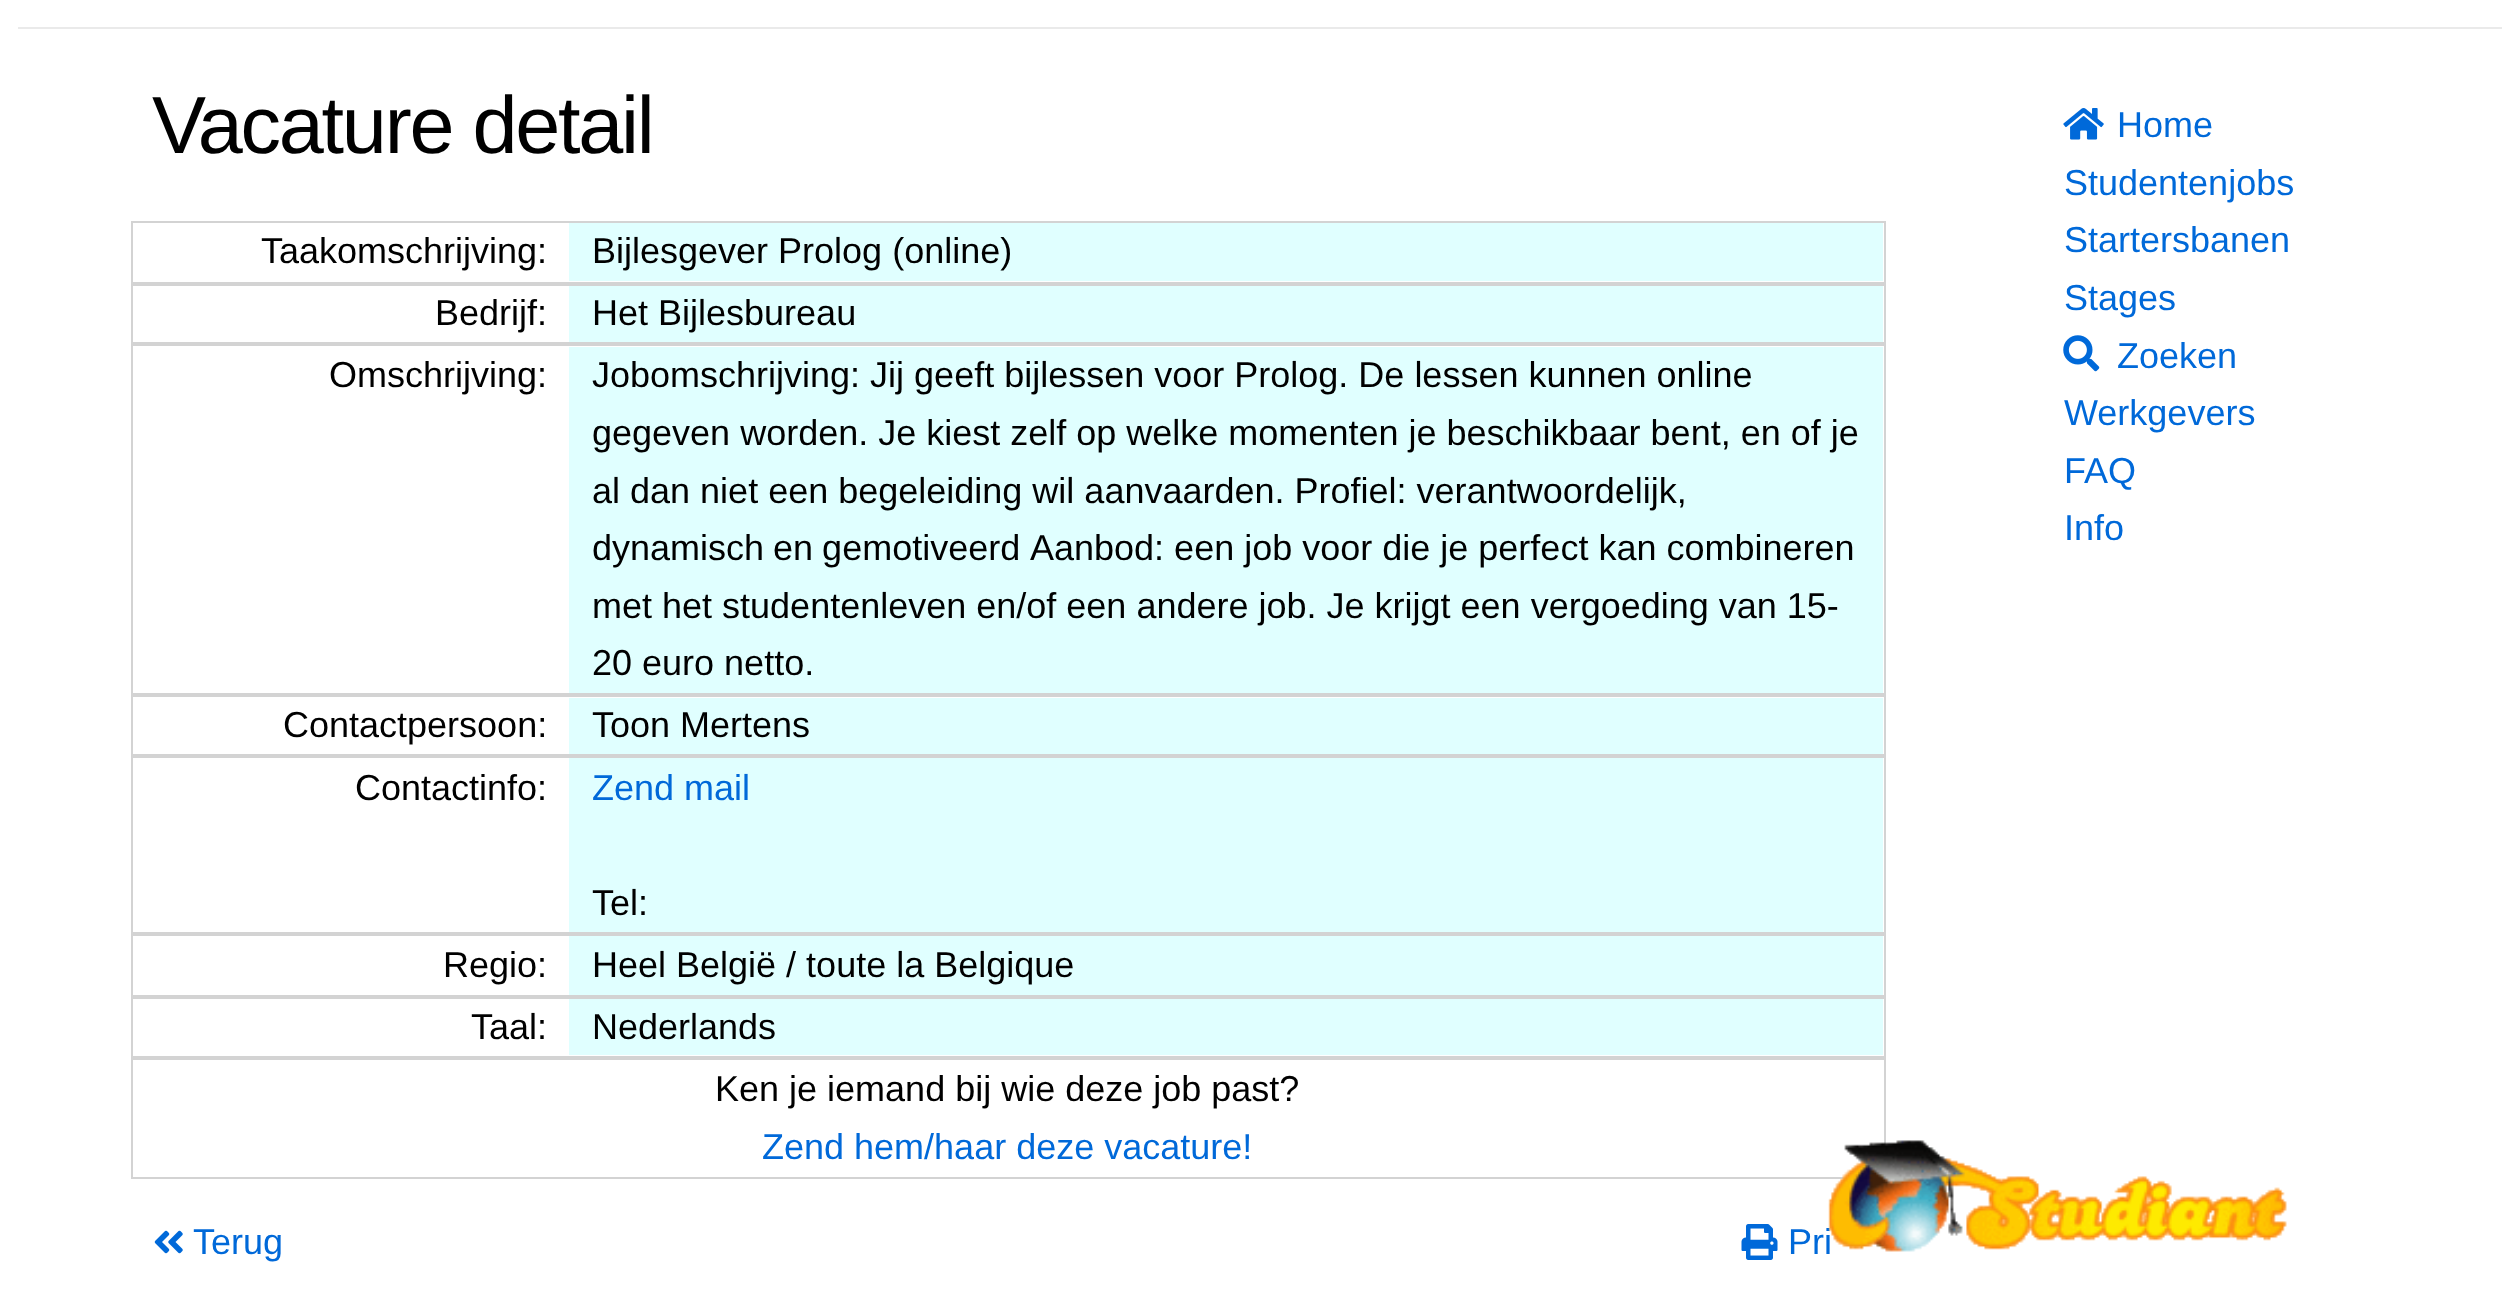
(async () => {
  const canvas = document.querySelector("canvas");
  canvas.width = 2518;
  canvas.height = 1299;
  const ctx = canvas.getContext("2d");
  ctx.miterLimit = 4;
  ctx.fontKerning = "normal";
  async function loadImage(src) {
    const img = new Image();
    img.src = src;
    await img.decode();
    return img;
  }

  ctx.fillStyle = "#ffffff";
  ctx.fillRect(0, 0, 2518, 1299);
  ctx.fillStyle = "#eaeaea";
  ctx.fillRect(18, 27, 2484, 2);
  ctx.strokeStyle = "#d3d3d3";
  ctx.lineWidth = 2;
  ctx.strokeRect(132, 222, 1753, 61);
  ctx.fillStyle = "#e0ffff";
  ctx.fillRect(569, 223, 1314, 58);
  ctx.strokeRect(132, 285, 1753, 58);
  ctx.fillRect(569, 286, 1314, 56);
  ctx.strokeRect(132, 345, 1753, 349);
  ctx.fillRect(569, 347, 1314, 346);
  ctx.strokeRect(132, 696, 1753, 59);
  ctx.fillRect(569, 698, 1314, 56);
  ctx.strokeRect(132, 757, 1753, 176);
  ctx.fillRect(569, 758, 1314, 174);
  ctx.strokeRect(132, 935, 1753, 61);
  ctx.fillRect(569, 936, 1314, 59);
  ctx.strokeRect(132, 998, 1753, 59);
  ctx.fillRect(569, 999, 1314, 56);
  ctx.strokeRect(132, 1059, 1753, 119);
  ctx.drawImage(await loadImage("img/1.png"), 154, 1230, 29, 24);
  ctx.drawImage(await loadImage("img/2.png"), 1741, 1224, 37, 36);
  ctx.drawImage(await loadImage("img/3.png"), 2063, 108, 41, 32);
  ctx.drawImage(await loadImage("img/4.png"), 2063, 335, 37, 37);
  ctx.letterSpacing = "-2.25px";
  ctx.font = "81px Liberation Sans";
  ctx.fillStyle = "#000000";
  ctx.fillText("Vacature detail", 152, 153);
  ctx.letterSpacing = "0px";
  ctx.font = "36px Liberation Sans";
  for (const [text, x, y] of [
    ["Taakomschrijving:", 261, 263],
    ["Bijlesgever Prolog (online)", 592, 263],
    ["Bedrijf:", 435, 325],
    ["Het Bijlesbureau", 592, 325],
    ["Omschrijving:", 329, 387],
    ["Jobomschrijving: Jij geeft bijlessen voor Prolog. De lessen kunnen online", 592, 387],
    ["gegeven worden. Je kiest zelf op welke momenten je beschikbaar bent, en of je", 592, 445],
    ["al dan niet een begeleiding wil aanvaarden. Profiel: verantwoordelijk,", 592, 503],
  ]) {
    ctx.fillText(text, x, y);
  }
  ctx.wordSpacing = "-1px";
  ctx.fillText("dynamisch en gemotiveerd", 592, 560);
  ctx.wordSpacing = "0px";
  for (const [text, x, y] of [
    ["Aanbod: een job voor die je perfect kan combineren", 1030, 560],
    ["met het studentenleven en/of een andere job. Je krijgt een vergoeding van 15-", 592, 618],
    ["20 euro netto.", 592, 675],
    ["Contactpersoon:", 283, 737],
    ["Toon Mertens", 592, 737],
    ["Contactinfo:", 355, 800],
  ]) {
    ctx.fillText(text, x, y);
  }
  ctx.fillStyle = "#0069d9";
  ctx.fillText("Zend mail", 592, 800);
  ctx.fillStyle = "#000000";
  for (const [text, x, y] of [
    ["Tel:", 592, 915],
    ["Regio:", 443, 977],
    ["Heel België / toute la Belgique", 592, 977],
    ["Taal:", 471, 1039],
    ["Nederlands", 592, 1039],
    ["Ken je iemand bij wie deze job past?", 715, 1101],
  ]) {
    ctx.fillText(text, x, y);
  }
  ctx.fillStyle = "#0069d9";
  for (const [text, x, y] of [
    ["Zend hem/haar deze vacature!", 762, 1159],
    ["Terug", 193, 1254],
    ["Pri", 1788, 1254],
    ["Home", 2117, 137],
    ["Studentenjobs", 2064, 195],
    ["Startersbanen", 2064, 252],
    ["Stages", 2064, 310],
    ["Zoeken", 2117, 368],
    ["Werkgevers", 2064, 425],
    ["FAQ", 2064, 483],
    ["Info", 2064, 540],
  ]) {
    ctx.fillText(text, x, y);
  }
  ctx.drawImage(await loadImage("img/5.png"), 1828, 1140, 459, 112);
})();
